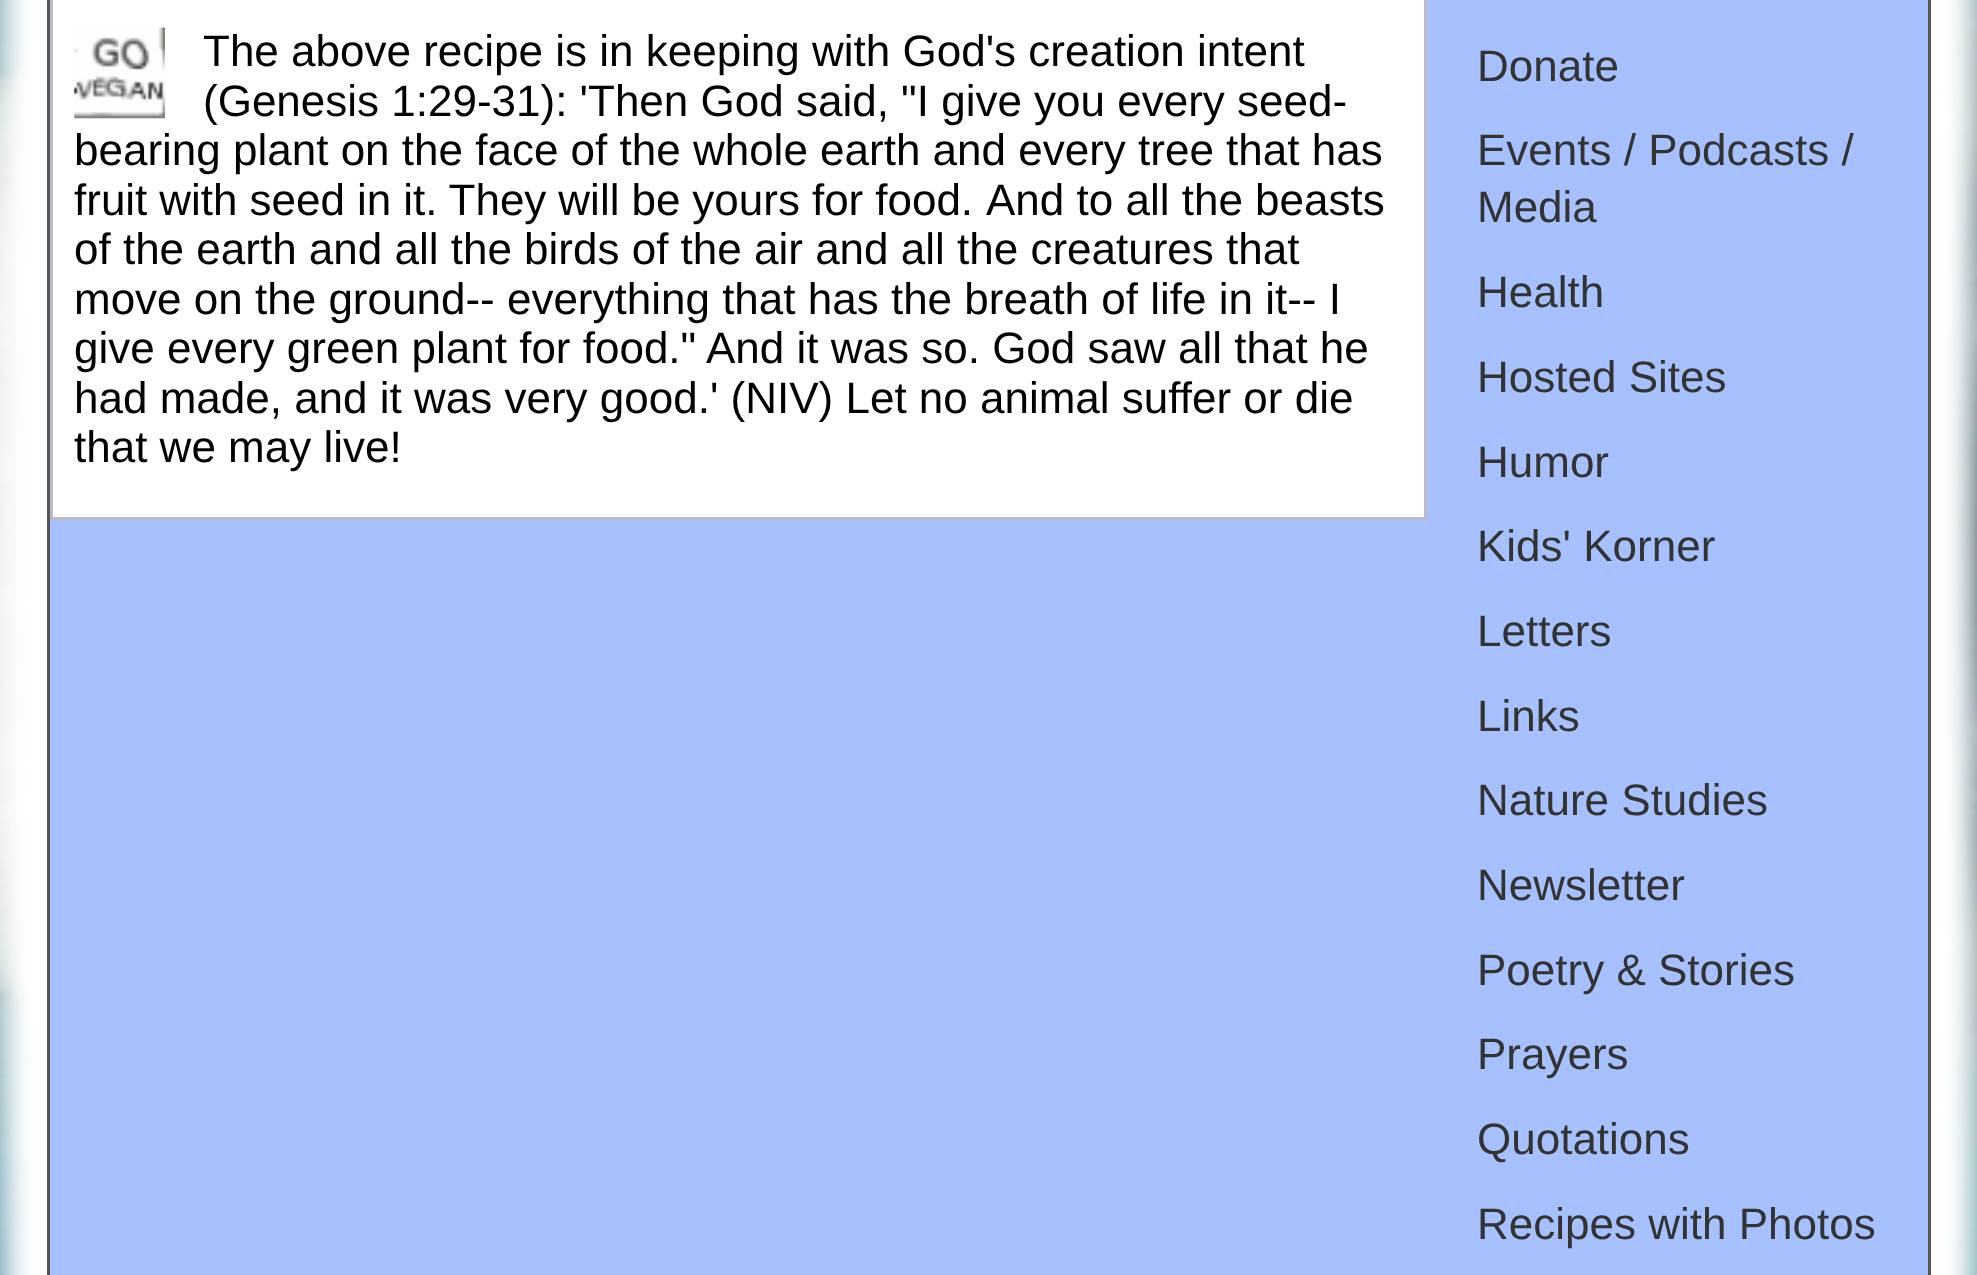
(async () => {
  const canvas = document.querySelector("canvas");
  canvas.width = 1977;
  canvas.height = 1275;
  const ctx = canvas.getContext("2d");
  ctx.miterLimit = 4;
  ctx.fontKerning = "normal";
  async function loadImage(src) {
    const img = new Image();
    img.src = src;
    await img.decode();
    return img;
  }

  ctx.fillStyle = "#ffffff";
  ctx.fillRect(0, 0, 1977, 1275);
  ctx.drawImage(await loadImage("img/1.png"), 0, 0, 1977, 1275);
  ctx.filter = "blur(14px)";
  ctx.beginPath();
  ctx.rect(6, -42, 1966, 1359);
  ctx.fill();
  ctx.filter = "none";
  ctx.fillStyle = "#a7c1fe";
  ctx.beginPath();
  ctx.rect(48.5, -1.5, 1881, 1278);
  ctx.fill();
  ctx.strokeStyle = "#555555";
  ctx.lineWidth = 3;
  ctx.stroke();
  ctx.fillStyle = "#ffffff";
  ctx.beginPath();
  ctx.rect(51.5, -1.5, 1374, 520);
  ctx.fill();
  ctx.strokeStyle = "#bfb9c5";
  ctx.stroke();
  ctx.drawImage(await loadImage("img/2.png"), 74, 27, 91, 92);
  ctx.font = "44px Liberation Sans";
  ctx.fillStyle = "#000000";
  for (const [text, x, y] of [
    ["The above recipe is in keeping with God's creation intent", 203, 66],
    ["(Genesis 1:29-31): 'Then God said, \"I give you every seed-", 203, 116],
    ["bearing plant on the face of the whole earth and every tree that has", 74, 165],
  ]) {
    ctx.fillText(text, x, y);
  }
  ctx.wordSpacing = "-0.25px";
  ctx.fillText("fruit with seed in it. They will be yours for food.", 74, 215);
  ctx.wordSpacing = "0px";
  for (const [text, x, y] of [
    ["And to all the beasts", 986, 215],
    ["of the earth and all the birds of the air and all the creatures that", 74, 264],
    ["move on the ground-- everything that has the breath of life in it-- I", 74, 314],
    ["give every green plant for food.\" And it was so. God saw all that he", 74, 363],
    ["had made, and it was very good.' (NIV) Let no animal suffer or die", 74, 413],
    ["that we may live!", 74, 462],
  ]) {
    ctx.fillText(text, x, y);
  }
  ctx.fillStyle = "#333333";
  for (const [text, x, y] of [
    ["Donate", 1477, 81],
    ["Events / Podcasts /", 1477, 165],
    ["Media", 1477, 222],
    ["Health", 1477, 307],
    ["Hosted Sites", 1477, 392],
    ["Humor", 1477, 477],
    ["Kids' Korner", 1477, 561],
    ["Letters", 1477, 646],
    ["Links", 1477, 731],
    ["Nature Studies", 1477, 815],
    ["Newsletter", 1477, 900],
    ["Poetry & Stories", 1477, 985],
    ["Prayers", 1477, 1069],
    ["Quotations", 1477, 1154],
    ["Recipes with Photos", 1477, 1239],
  ]) {
    ctx.fillText(text, x, y);
  }
})();
